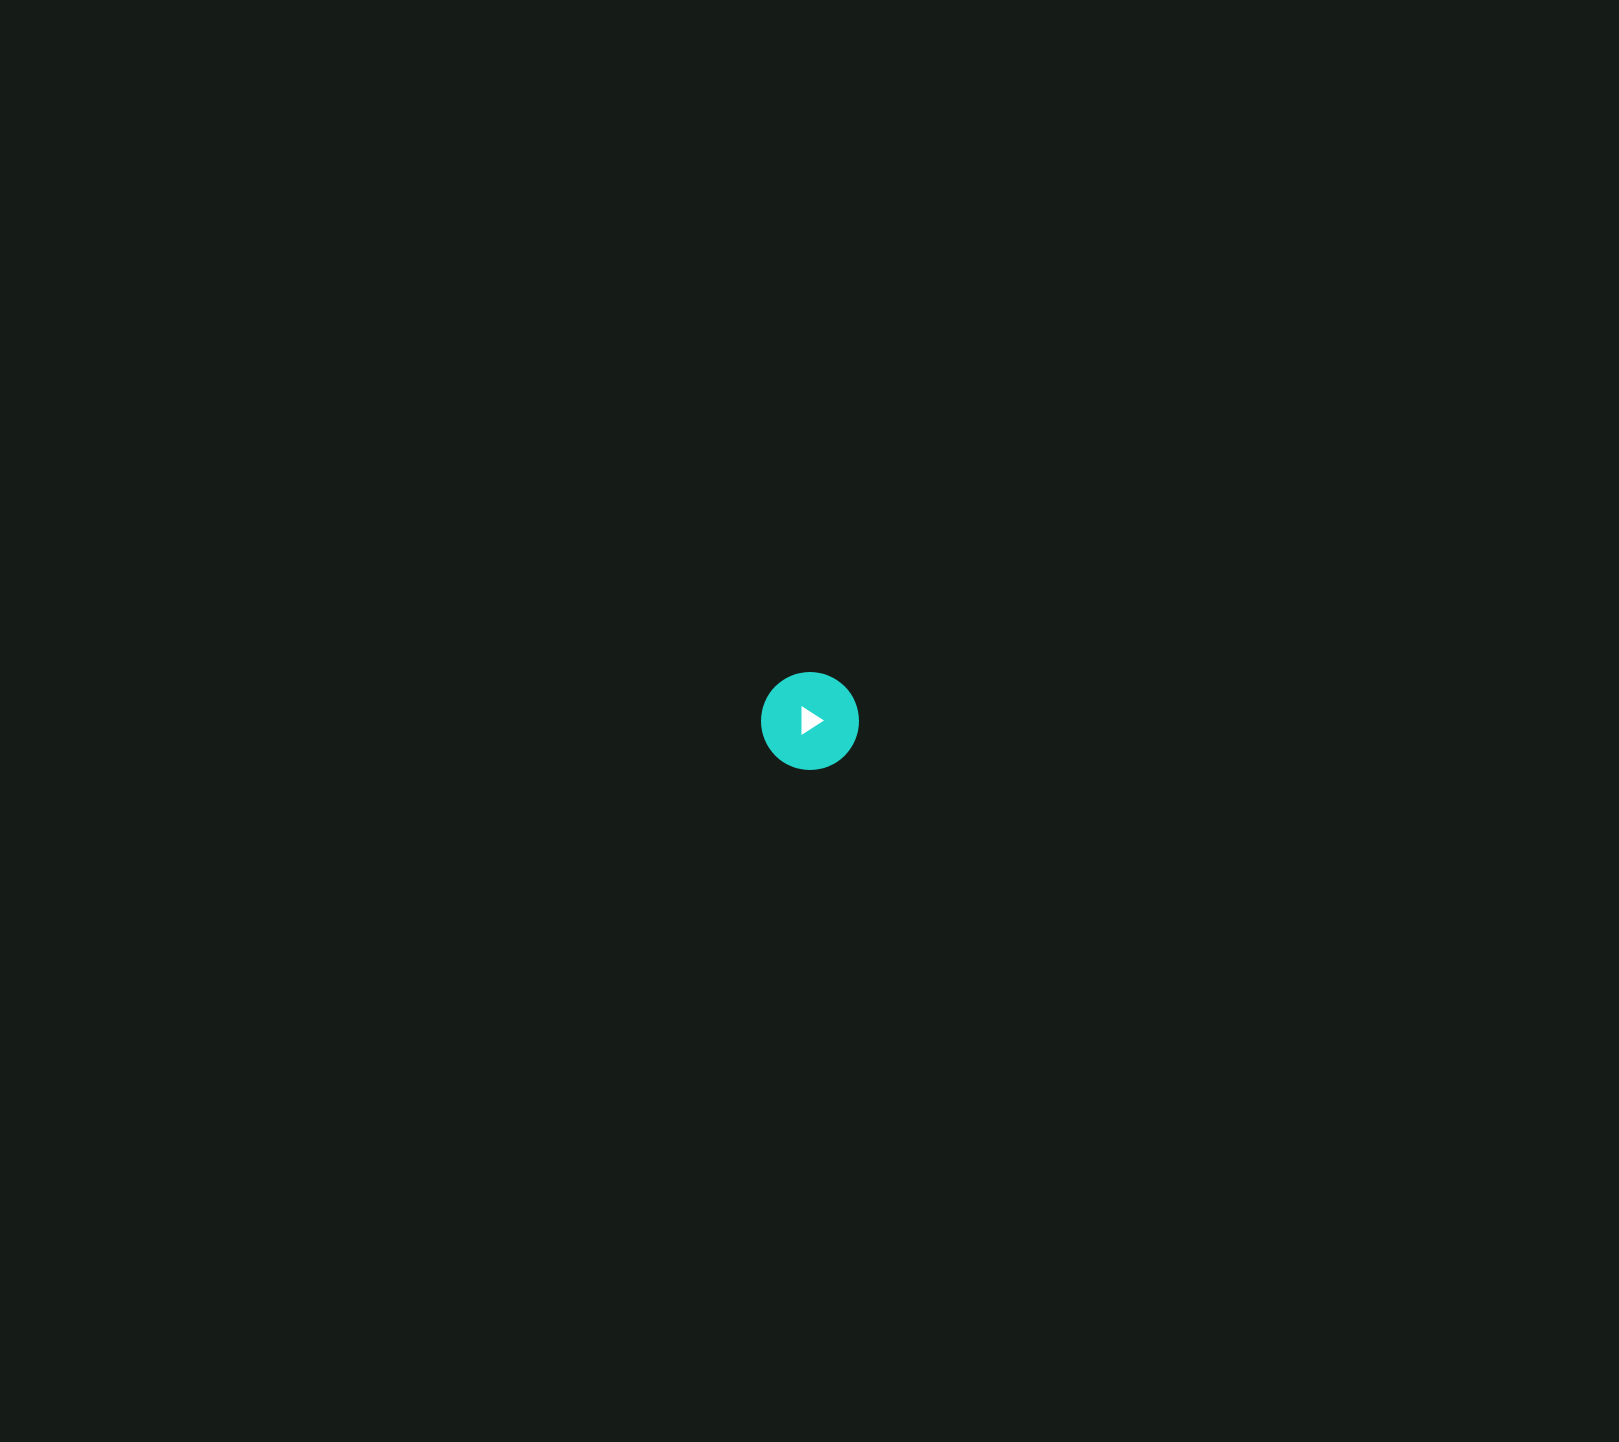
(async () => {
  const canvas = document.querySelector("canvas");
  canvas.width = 1619;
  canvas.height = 1442;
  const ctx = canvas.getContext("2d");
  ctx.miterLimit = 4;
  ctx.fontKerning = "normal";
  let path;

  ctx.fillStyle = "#151b17";
  ctx.fillRect(0, 0, 1619, 1442);
  ctx.fillStyle = "#24d5cc";
  ctx.beginPath();
  ctx.arc(810, 721, 49, 0, Math.PI * 2);
  ctx.fill();
  ctx.fillStyle = "#ffffff";
  path = new Path2D("M801.5 706V735L824 720.5Z");
  ctx.fill(path);
})();
